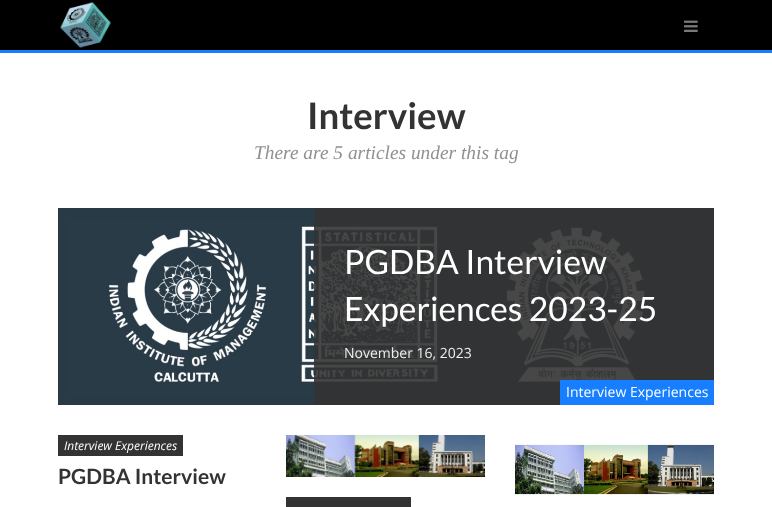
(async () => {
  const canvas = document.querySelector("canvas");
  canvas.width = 772;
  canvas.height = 507;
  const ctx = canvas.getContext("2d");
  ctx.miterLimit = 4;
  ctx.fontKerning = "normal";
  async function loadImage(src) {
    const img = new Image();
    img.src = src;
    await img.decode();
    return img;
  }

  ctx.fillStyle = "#ffffff";
  ctx.fillRect(0, 0, 772, 507);
  ctx.fillStyle = "#000000";
  ctx.fillRect(0, 0, 772, 50);
  ctx.fillStyle = "#177fff";
  ctx.fillRect(0, 50, 772, 3);
  ctx.drawImage(await loadImage("img/1.png"), 60, 2, 51, 46);
  ctx.drawImage(await loadImage("img/2.png"), 684, 20, 14, 12);
  ctx.drawImage(await loadImage("img/3.png"), 58, 208, 656, 197);
  for (const [x, y, w, h, color] of [
    [314, 208, 400, 197, "rgba(51, 51, 51, 0.9)"],
    [560, 380, 154, 25, "#177fff"],
    [58, 435, 125, 21, "#333333"],
  ]) {
    ctx.fillStyle = color;
    ctx.fillRect(x, y, w, h);
  }
  ctx.drawImage(await loadImage("img/4.png"), 286, 435, 199, 42);
  ctx.fillRect(286, 497, 125, 10);
  ctx.drawImage(await loadImage("img/5.png"), 515, 443, 199, 52);
  ctx.font = "bold 36.5px Lato";
  ctx.fillText("Interview", 307, 129);
  ctx.font = "italic 19.4px Liberation Serif";
  ctx.fillStyle = "#909090";
  ctx.fillText("There are 5 articles under this tag", 254, 159);
  ctx.font = "33.5px Lato";
  ctx.fillStyle = "#ffffff";
  ctx.fillText("PGDBA Interview", 344, 274);
  ctx.fillText("Experiences 2023-25", 344, 321);
  ctx.font = "14px Open Sans";
  ctx.fillStyle = "#eeeeee";
  ctx.fillText("November 16, 2023", 344, 358);
  ctx.fillStyle = "#ffffff";
  ctx.fillText("Interview Experiences", 566, 397);
  ctx.font = "italic 12px Open Sans";
  ctx.fillText("Interview Experiences", 64, 450);
  ctx.font = "bold 21px Lato";
  ctx.fillStyle = "#333333";
  ctx.fillText("PGDBA Interview", 58, 484);
})();
